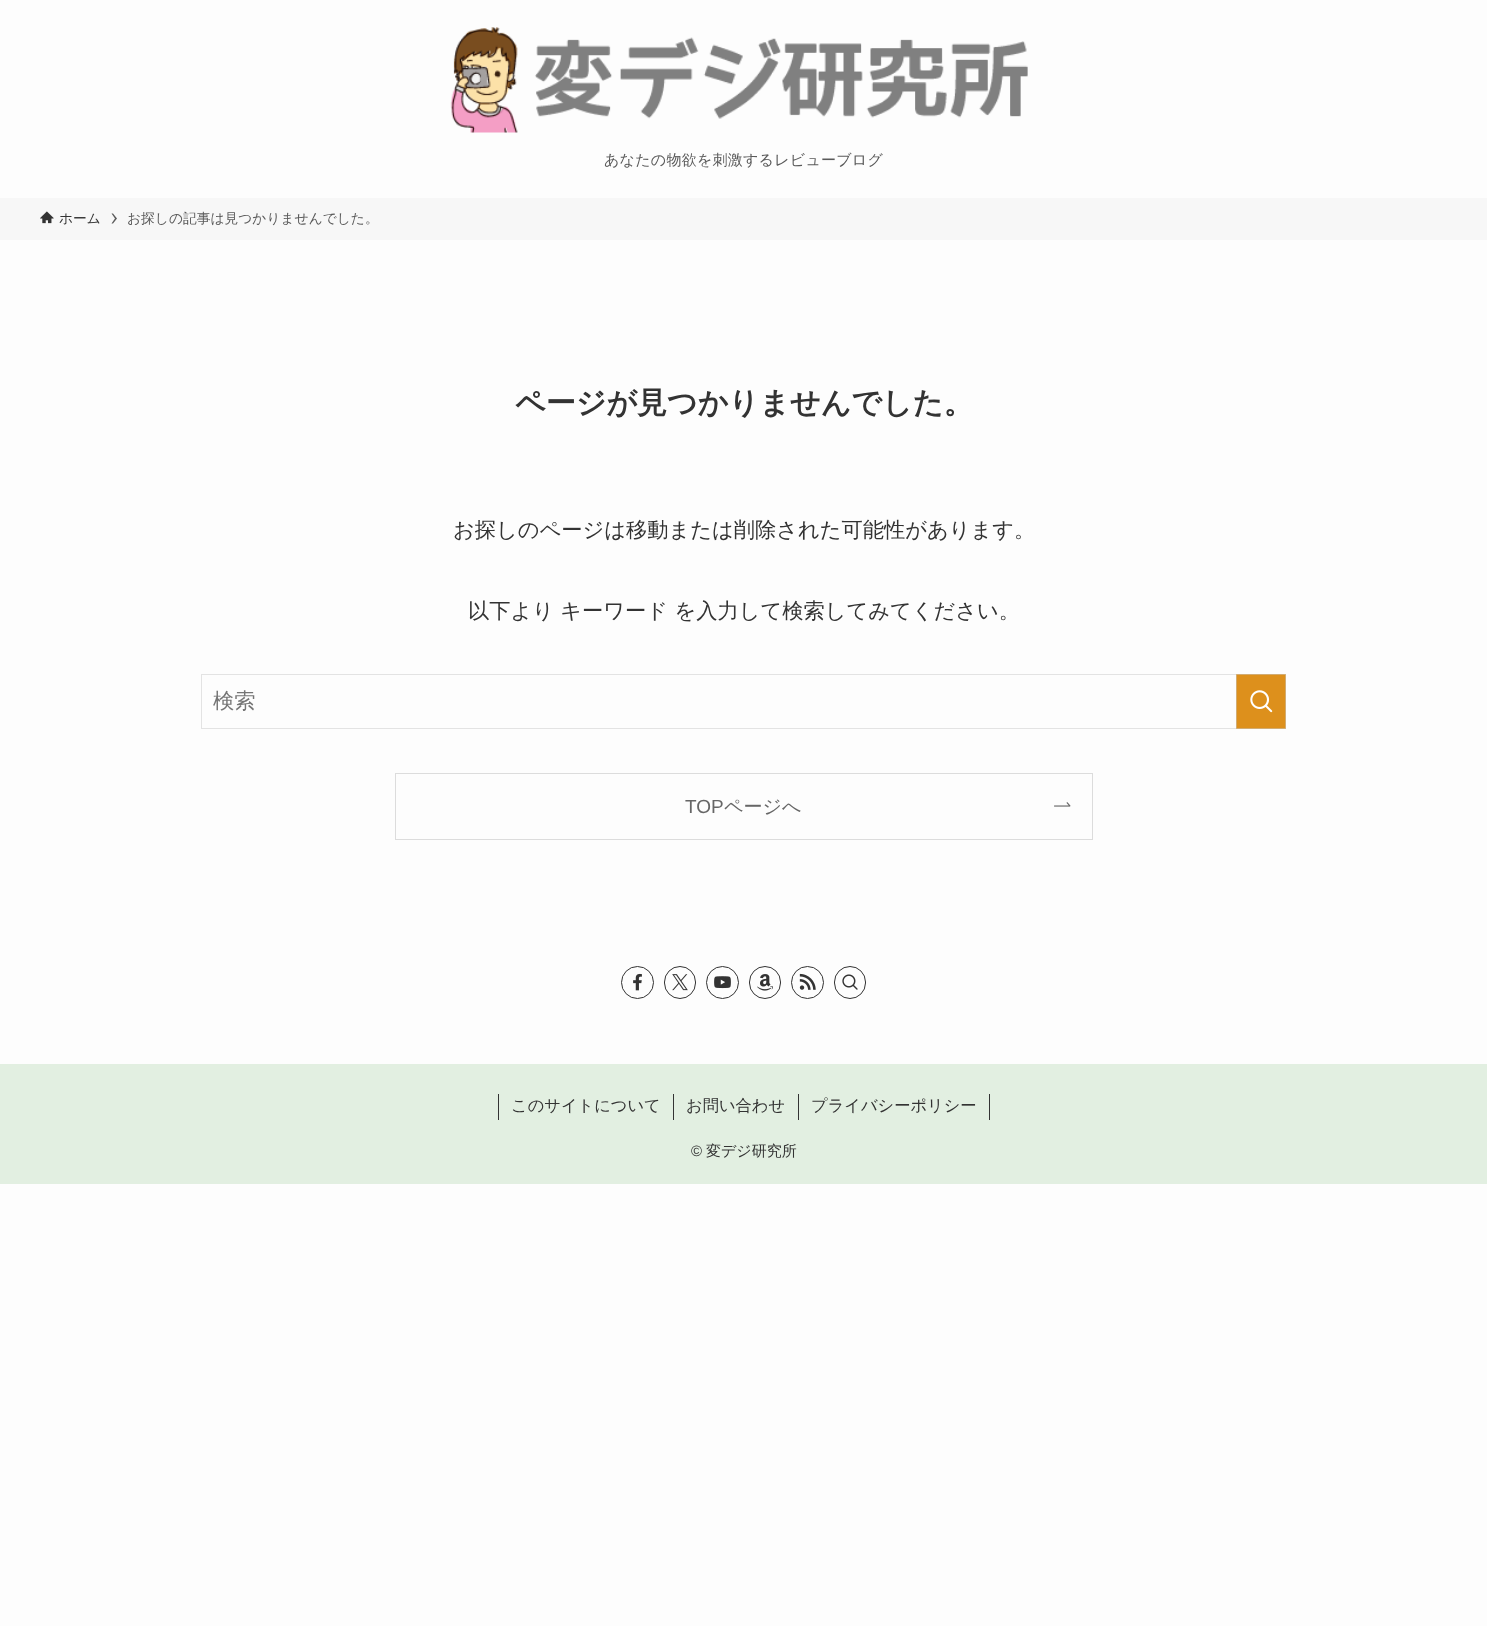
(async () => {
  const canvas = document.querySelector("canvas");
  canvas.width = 1487;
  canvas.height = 1626;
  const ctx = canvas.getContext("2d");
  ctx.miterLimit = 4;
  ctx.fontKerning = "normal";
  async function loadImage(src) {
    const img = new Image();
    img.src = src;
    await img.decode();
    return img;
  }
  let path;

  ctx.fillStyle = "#fdfdfd";
  ctx.fillRect(0, 0, 1487, 1626);
  ctx.drawImage(await loadImage("img/1.png"), 450, 27, 578, 106);
  ctx.fillStyle = "#f7f7f7";
  ctx.fillRect(0, 198, 1487, 42);
  ctx.drawImage(await loadImage("img/2.png"), 40, 211, 14, 13);
  ctx.fillStyle = "#5a5a5a";
  path = new Path2D("M113 213.5H111.5L115 218.5L111.5 223.5H113L117 218.5Z");
  ctx.fill(path);
  ctx.strokeStyle = "#e3e3e3";
  ctx.strokeRect(201.5, 674.5, 1084, 54);
  ctx.fillStyle = "#dd901c";
  ctx.beginPath();
  ctx.rect(1236.5, 674.5, 49, 54);
  ctx.fill();
  ctx.strokeStyle = "#d2ac72";
  ctx.stroke();
  ctx.drawImage(await loadImage("img/3.png"), 1250, 690, 23, 23);
  ctx.strokeStyle = "#dcdcdc";
  ctx.strokeRect(395.5, 773.5, 697, 66);
  ctx.drawImage(await loadImage("img/4.png"), 1054, 802, 17, 5);
  ctx.beginPath();
  ctx.arc(637.5, 982.5, 16, 0, Math.PI * 2);
  ctx.strokeStyle = "#333333";
  ctx.stroke();
  ctx.drawImage(await loadImage("img/5.png"), 633, 973, 9, 18);
  ctx.beginPath();
  ctx.roundRect(664.5, 966.5, 31, 32, 15.5);
  ctx.stroke();
  ctx.drawImage(await loadImage("img/6.png"), 672, 974, 16, 17);
  ctx.beginPath();
  ctx.arc(722.5, 982.5, 16, 0, Math.PI * 2);
  ctx.stroke();
  ctx.drawImage(await loadImage("img/7.png"), 714, 976, 17, 13);
  ctx.beginPath();
  ctx.roundRect(749.5, 966.5, 31, 32, 15.5);
  ctx.stroke();
  ctx.drawImage(await loadImage("img/8.png"), 757, 974, 16, 17);
  ctx.beginPath();
  ctx.arc(807.5, 982.5, 16, 0, Math.PI * 2);
  ctx.stroke();
  ctx.drawImage(await loadImage("img/9.png"), 799, 973, 17, 17);
  ctx.beginPath();
  ctx.roundRect(834.5, 966.5, 31, 32, 15.5);
  ctx.stroke();
  ctx.drawImage(await loadImage("img/10.png"), 842, 974, 16, 16);
  for (const [x, y, w, h, color] of [
    [0, 1064, 1487, 120, "#e2efe1"],
    [673, 1094, 1, 26, "#333333"],
    [498, 1094, 1, 26, "#333333"],
    [798, 1094, 1, 26, "#333333"],
    [989, 1094, 1, 26, "#333333"],
  ]) {
    ctx.fillStyle = color;
    ctx.fillRect(x, y, w, h);
  }
  ctx.letterSpacing = "0.25px";
  ctx.font = "500 15px WenQuanYi Zen Hei";
  ctx.fillStyle = "#5a5a5a";
  ctx.fillText("あなたの物欲を刺激するレビューブログ", 604, 165);
  ctx.letterSpacing = "0px";
  ctx.font = "500 13.75px WenQuanYi Zen Hei";
  ctx.fillStyle = "#333333";
  ctx.fillText("ホーム", 59, 223);
  ctx.fillStyle = "#5a5a5a";
  ctx.fillText("お探しの記事は見つかりませんでした。", 127, 223);
  ctx.font = "bold 30px WenQuanYi Zen Hei";
  ctx.fillStyle = "#333333";
  ctx.fillText("ページが見つかりませんでした。", 515, 413);
  ctx.font = "500 21.25px WenQuanYi Zen Hei";
  ctx.fillText("お探しのページは移動または削除された可能性があります。", 453, 537);
  ctx.fillText("以下より キーワード を入力して検索してみてください。", 468, 618);
  ctx.fillStyle = "#757575";
  ctx.fillText("検索", 213, 708);
  ctx.font = "19px Liberation Sans";
  ctx.fillStyle = "#666666";
  ctx.fillText("TOP", 685, 813);
  ctx.font = "500 19px WenQuanYi Zen Hei";
  ctx.fillText("ページへ", 724, 813);
  ctx.font = "500 16.25px WenQuanYi Zen Hei";
  ctx.fillStyle = "#333333";
  for (const [text, x, y] of [
    ["このサイトについて", 511, 1111],
    ["お問い合わせ", 686, 1111],
    ["プライバシーポリシー", 811, 1111],
  ]) {
    ctx.fillText(text, x, y);
  }
  ctx.font = "15px Liberation Sans";
  ctx.fillText("©", 691, 1156);
  ctx.font = "500 15px WenQuanYi Zen Hei";
  ctx.fillText("変デジ研究所", 706, 1156);
})();
